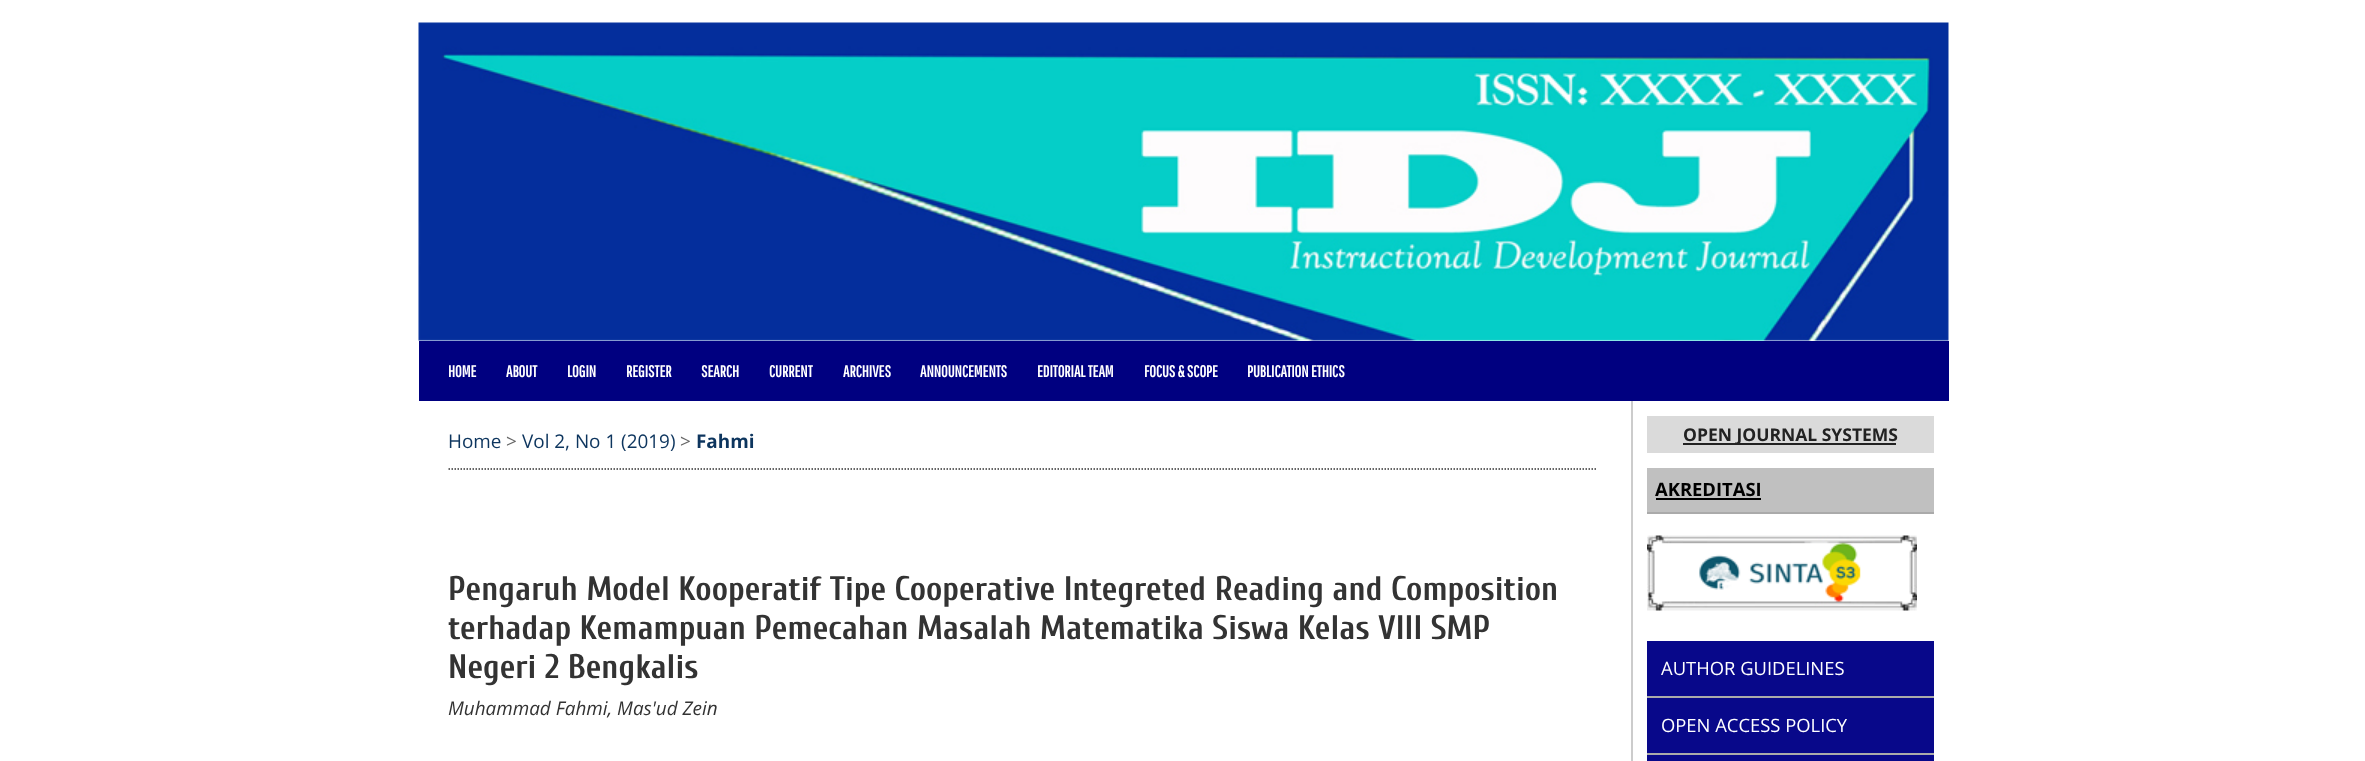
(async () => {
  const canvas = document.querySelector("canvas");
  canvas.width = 2365;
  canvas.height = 761;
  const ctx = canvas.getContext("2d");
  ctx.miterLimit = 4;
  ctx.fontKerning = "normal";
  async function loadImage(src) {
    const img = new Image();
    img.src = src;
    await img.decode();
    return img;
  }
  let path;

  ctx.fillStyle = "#ffffff";
  ctx.fillRect(0, 0, 2365, 761);
  ctx.drawImage(await loadImage("img/1.png"), 418, 22, 1531, 319);
  ctx.fillStyle = "#000080";
  ctx.fillRect(419, 341, 1530, 60);
  path = new Path2D("M448.5 469H1596");
  ctx.strokeStyle = "#333333";
  ctx.lineWidth = 1.5;
  ctx.setLineDash([1.5, 1.5]);
  ctx.stroke(path);
  for (const [x, y, w, h, color] of [
    [1631, 401, 2, 360, "#cccccc"],
    [1647, 416, 287, 37, "#dadada"],
    [1683, 443, 213, 2, "#222222"],
    [1647, 468, 287, 44, "#c0c0c0"],
    [1647, 512, 287, 2, "#aaaaaa"],
    [1656, 498, 105, 2, "#000000"],
  ]) {
    ctx.fillStyle = color;
    ctx.fillRect(x, y, w, h);
  }
  ctx.drawImage(await loadImage("img/2.png"), 1647, 535, 270, 76);
  for (const [x, y, w, h, color] of [
    [1647, 641, 287, 55, "#08088a"],
    [1647, 696, 287, 2, "#aaaaaa"],
    [1647, 698, 287, 55, "#08088a"],
    [1647, 753, 287, 2, "#aaaaaa"],
    [1647, 755, 287, 6, "#08088a"],
  ]) {
    ctx.fillStyle = color;
    ctx.fillRect(x, y, w, h);
  }
  ctx.font = "bold 16.25px Pathway Gothic One";
  ctx.fillStyle = "#ffffff";
  for (const [text, x, y] of [
    ["HOME", 448, 377],
    ["ABOUT", 506, 377],
    ["LOGIN", 567, 377],
    ["REGISTER", 626, 377],
    ["SEARCH", 701, 377],
    ["CURRENT", 769, 377],
    ["ARCHIVES", 843, 377],
    ["ANNOUNCEMENTS", 920, 377],
    ["EDITORIAL TEAM", 1037, 377],
    ["FOCUS & SCOPE", 1144, 377],
    ["PUBLICATION ETHICS", 1247, 377],
  ]) {
    ctx.fillText(text, x, y);
  }
  ctx.font = "18.9px Open Sans";
  ctx.fillStyle = "#0d355e";
  ctx.fillText("Home", 448, 448);
  ctx.fillStyle = "#666666";
  ctx.fillText(">", 506, 448);
  ctx.fillStyle = "#0d355e";
  ctx.fillText("Vol 2, No 1 (2019)", 522, 448);
  ctx.fillStyle = "#666666";
  ctx.fillText(">", 680, 448);
  ctx.font = "bold 18.9px Open Sans";
  ctx.fillStyle = "#0d355e";
  ctx.fillText("Fahmi", 696, 448);
  ctx.font = "bold 34px Cuprum";
  ctx.fillStyle = "#333333";
  for (const [text, x, y] of [
    ["Pengaruh Model Kooperatif Tipe Cooperative Integreted Reading and Composition", 448, 600],
    ["terhadap Kemampuan Pemecahan Masalah Matematika Siswa Kelas VIII SMP", 448, 639],
    ["Negeri 2 Bengkalis", 448, 678],
  ]) {
    ctx.fillText(text, x, y);
  }
  ctx.font = "italic 18.9px Open Sans";
  ctx.fillText("Muhammad Fahmi, Mas'ud Zein", 448, 715);
  ctx.font = "bold 17.5px Open Sans";
  ctx.fillStyle = "#222222";
  ctx.fillText("OPEN JOURNAL SYSTEMS", 1683, 441);
  ctx.font = "bold 18.4px Open Sans";
  ctx.fillStyle = "#000000";
  ctx.fillText("AKREDITASI", 1655, 496);
  ctx.font = "18.4px Open Sans";
  ctx.fillStyle = "#ffffff";
  ctx.fillText("AUTHOR GUIDELINES", 1661, 675);
  ctx.fillText("OPEN ACCESS POLICY", 1661, 732);
})();
